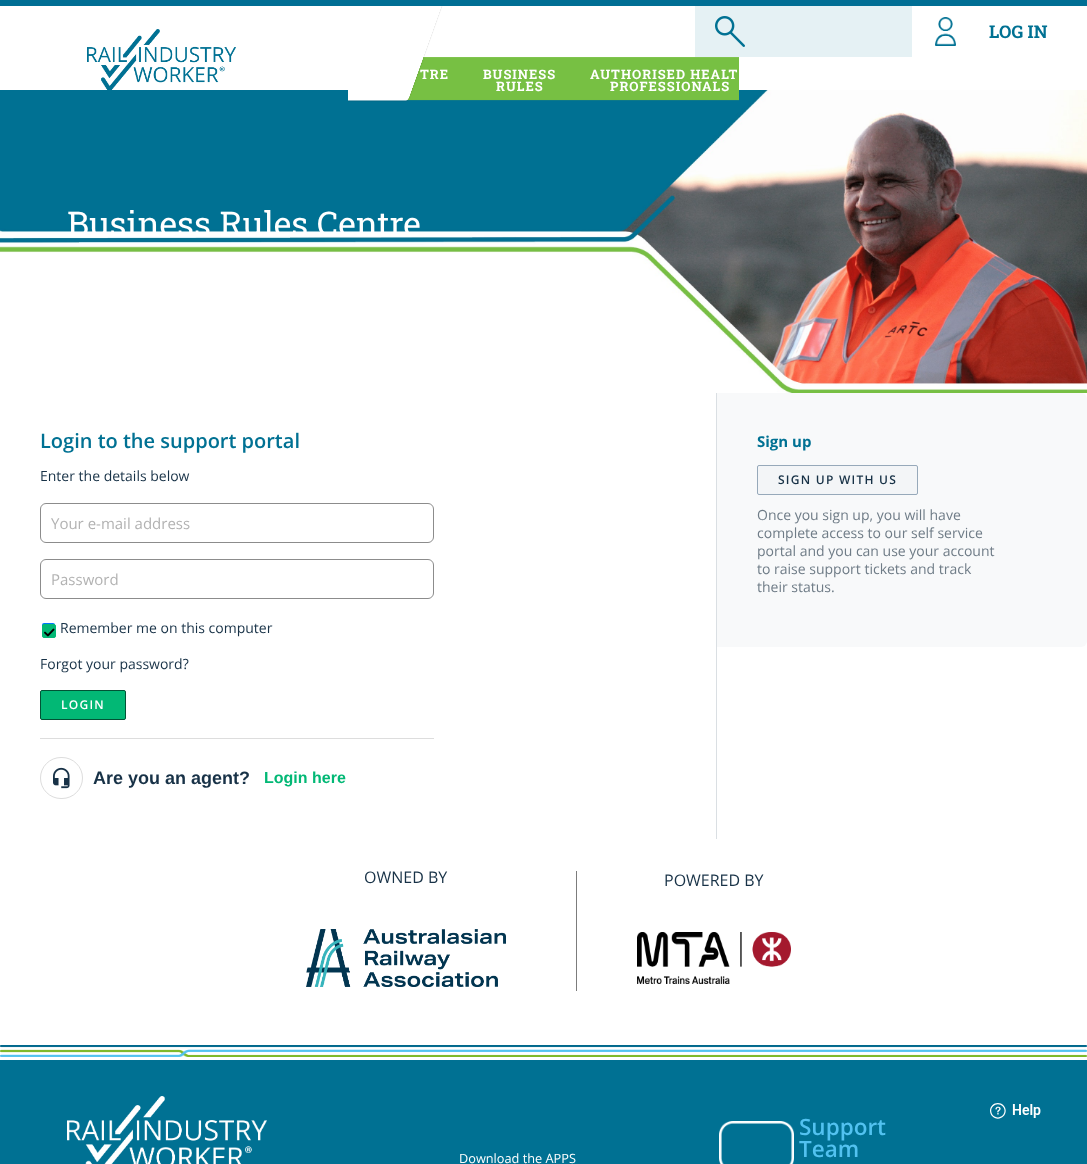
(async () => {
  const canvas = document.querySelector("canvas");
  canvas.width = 1087;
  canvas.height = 1164;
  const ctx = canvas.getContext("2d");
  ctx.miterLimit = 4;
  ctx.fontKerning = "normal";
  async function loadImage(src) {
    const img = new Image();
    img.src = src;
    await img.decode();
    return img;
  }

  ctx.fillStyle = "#ffffff";
  ctx.fillRect(0, 0, 1087, 1164);
  ctx.fillStyle = "#006e94";
  ctx.fillRect(0, 0, 1087, 6);
  ctx.drawImage(await loadImage("img/1.png"), 87, 29, 149, 61);
  ctx.drawImage(await loadImage("img/5.png"), 0, 90, 1087, 303);
  ctx.drawImage(await loadImage("img/2.png"), 348, 6, 391, 96);
  ctx.fillStyle = "#e5f1f4";
  ctx.fillRect(695, 6, 217, 51);
  ctx.drawImage(await loadImage("img/3.png"), 715, 16, 30, 31);
  ctx.drawImage(await loadImage("img/4.png"), 935, 17, 21, 29);
  ctx.fillStyle = "#dadfe3";
  ctx.fillRect(716, 393, 1, 446);
  ctx.beginPath();
  ctx.roundRect(40.5, 503.5, 393, 39, 5.5);
  ctx.strokeStyle = "#8c8c8c";
  ctx.stroke();
  ctx.beginPath();
  ctx.roundRect(40.5, 559.5, 393, 39, 5.5);
  ctx.stroke();
  ctx.fillStyle = "#0075ff";
  ctx.beginPath();
  ctx.roundRect(42, 623, 13, 13, 2);
  ctx.fill();
  ctx.fillStyle = "#02b875";
  ctx.beginPath();
  ctx.roundRect(42.5, 624.5, 13, 13, 1.5);
  ctx.fill();
  ctx.strokeStyle = "#02b875";
  ctx.stroke();
  ctx.drawImage(await loadImage("img/6.png"), 44, 628, 11, 9);
  ctx.beginPath();
  ctx.roundRect(40.5, 690.5, 85, 29, 1.5);
  ctx.fill();
  ctx.strokeStyle = "#015335";
  ctx.stroke();
  ctx.fillStyle = "#dddddd";
  ctx.fillRect(40, 738, 394, 1);
  ctx.beginPath();
  ctx.roundRect(40.5, 757.5, 42, 41, 20.5);
  ctx.strokeStyle = "#dddddd";
  ctx.stroke();
  ctx.drawImage(await loadImage("img/7.png"), 53, 767, 17, 22);
  ctx.fillStyle = "#f8f9fa";
  ctx.beginPath();
  ctx.roundRect(717, 393, 370, 254, [0, 6, 6, 0]);
  ctx.fill();
  ctx.fillStyle = "#f3f5f7";
  ctx.beginPath();
  ctx.roundRect(757.5, 465.5, 160, 29, 1.5);
  ctx.fill();
  ctx.strokeStyle = "#97a9ba";
  ctx.stroke();
  ctx.drawImage(await loadImage("img/8.png"), 306, 929, 200, 58);
  ctx.fillStyle = "#7c7c7c";
  ctx.fillRect(576, 871, 1, 120);
  ctx.drawImage(await loadImage("img/9.png"), 637, 932, 154, 52);
  ctx.drawImage(await loadImage("img/10.png"), 0, 1045, 1087, 12);
  ctx.fillStyle = "#007193";
  ctx.fillRect(0, 1060, 1087, 104);
  ctx.drawImage(await loadImage("img/11.png"), 67, 1096, 200, 68);
  ctx.drawImage(await loadImage("img/12.png"), 719, 1121, 75, 43);
  ctx.drawImage(await loadImage("img/13.png"), 990, 1103, 51, 16);
  ctx.font = "bold 17.5px Roboto Slab";
  ctx.fillText("LOG IN", 989, 38);
  ctx.letterSpacing = "1px";
  ctx.font = "bold 13px Roboto Slab";
  ctx.fillStyle = "#ffffff";
  for (const [text, x, y] of [
    ["TRE", 420, 79],
    ["BUSINESS", 483, 79],
    ["RULES", 496, 91],
    ["AUTHORISED HEALT", 590, 79],
    ["PROFESSIONALS", 610, 91],
  ]) {
    ctx.fillText(text, x, y);
  }
  ctx.letterSpacing = "0px";
  ctx.font = "34px Roboto Slab";
  ctx.fillText("Business Rules Centre", 67, 236);
  ctx.font = "600 20px Open Sans";
  ctx.fillStyle = "#007193";
  ctx.fillText("Login to the support portal", 40, 448);
  ctx.font = "14px Open Sans";
  ctx.fillStyle = "#183247";
  ctx.fillText("Enter the details below", 40, 481);
  ctx.font = "15px Open Sans";
  ctx.fillStyle = "#b2b2b2";
  ctx.fillText("Your e-mail address", 51, 529);
  ctx.fillText("Password", 51, 585);
  ctx.font = "14px Open Sans";
  ctx.fillStyle = "#183247";
  ctx.fillText("Remember me on this computer", 60, 633);
  ctx.fillText("Forgot your password?", 40, 669);
  ctx.letterSpacing = "1.25px";
  ctx.font = "600 12px Open Sans";
  ctx.fillStyle = "#ffffff";
  ctx.fillText("LOGIN", 61, 709);
  ctx.letterSpacing = "0px";
  ctx.font = "bold 18px Liberation Sans";
  ctx.fillStyle = "#183247";
  ctx.fillText("Are you an agent?", 93, 784);
  ctx.font = "bold 16px Liberation Sans";
  ctx.fillStyle = "#02b875";
  ctx.fillText("Login here", 264, 783);
  ctx.font = "bold 15px Open Sans";
  ctx.fillStyle = "#007193";
  ctx.fillText("Sign up", 757, 447);
  ctx.letterSpacing = "1.25px";
  ctx.font = "600 12px Open Sans";
  ctx.fillStyle = "#183247";
  ctx.fillText("SIGN UP WITH US", 778, 484);
  ctx.letterSpacing = "0px";
  ctx.font = "14px Open Sans";
  ctx.fillStyle = "#6f7c87";
  for (const [text, x, y] of [
    ["Once you sign up, you will have", 757, 520],
    ["complete access to our self service", 757, 538],
    ["portal and you can use your account", 757, 556],
    ["to raise support tickets and track", 757, 574],
    ["their status.", 757, 592],
  ]) {
    ctx.fillText(text, x, y);
  }
  ctx.font = "16px Open Sans";
  ctx.fillStyle = "#183247";
  ctx.fillText("OWNED BY", 364, 883);
  ctx.fillText("POWERED BY", 664, 886);
  ctx.font = "12.75px Open Sans";
  ctx.fillStyle = "#ffffff";
  ctx.fillText("Download the APPS", 459, 1163);
  ctx.font = "600 22.5px Open Sans";
  ctx.fillStyle = "#52c2f0";
  ctx.fillText("Support", 799, 1135);
  ctx.fillText("Team", 799, 1157);
})();
